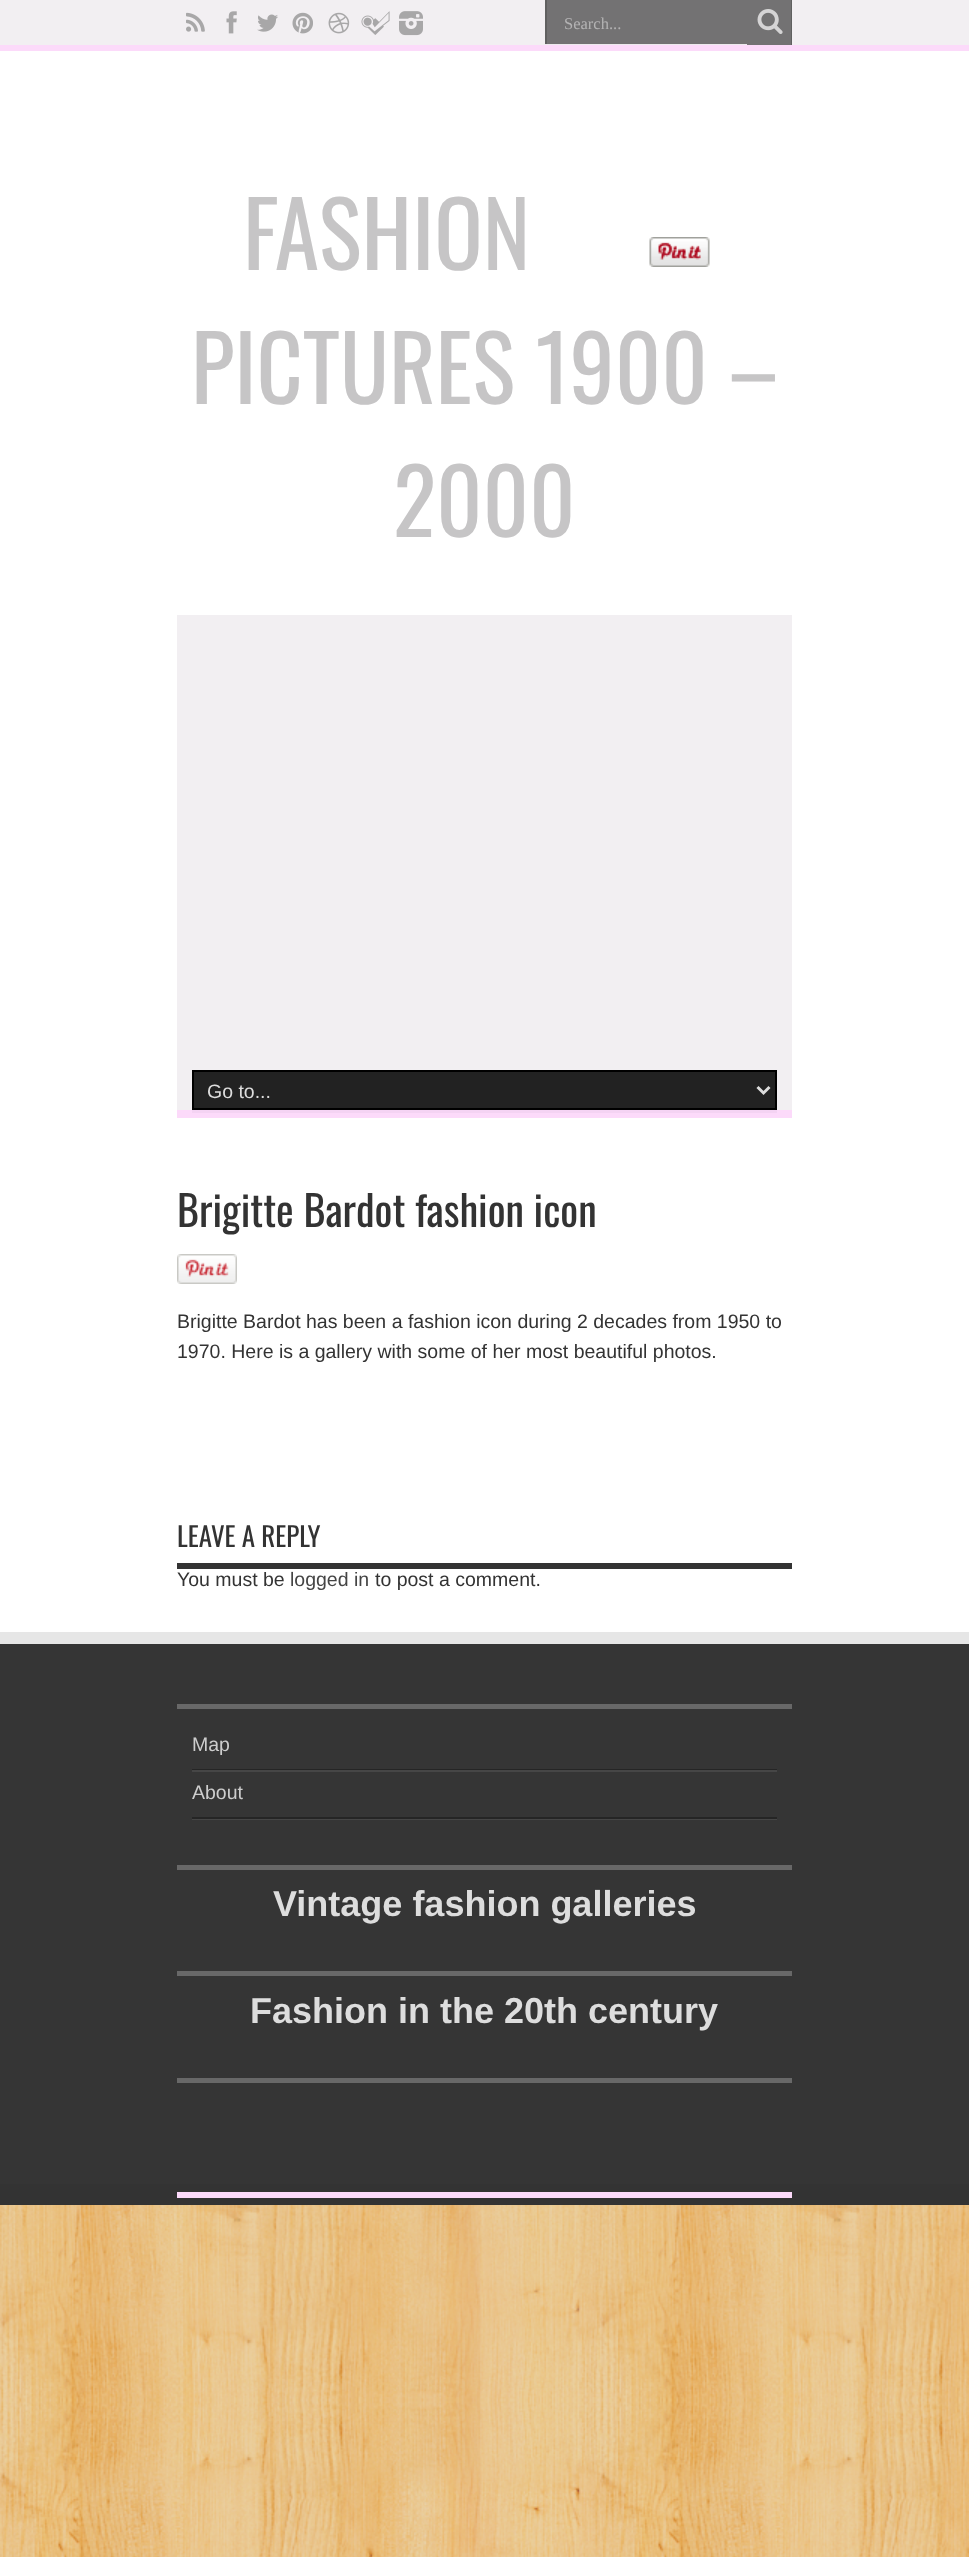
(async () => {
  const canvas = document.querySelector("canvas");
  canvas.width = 969;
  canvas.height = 2557;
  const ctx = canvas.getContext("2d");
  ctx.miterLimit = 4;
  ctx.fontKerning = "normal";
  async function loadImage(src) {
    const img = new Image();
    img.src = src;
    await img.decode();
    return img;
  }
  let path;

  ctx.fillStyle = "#ffffff";
  ctx.fillRect(0, 0, 969, 2557);
  ctx.drawImage(await loadImage("img/1.png"), 0, 2205, 969, 352);
  ctx.fillStyle = "#f2eff2";
  ctx.fillRect(0, 0, 969, 45);
  ctx.fillStyle = "#fcdafa";
  ctx.fillRect(0, 45, 969, 6);
  ctx.drawImage(await loadImage("img/2.png"), 186, 12, 19, 20);
  ctx.drawImage(await loadImage("img/3.png"), 226, 11, 11, 23);
  ctx.drawImage(await loadImage("img/4.png"), 257, 14, 21, 18);
  ctx.drawImage(await loadImage("img/5.png"), 292, 12, 21, 22);
  ctx.drawImage(await loadImage("img/6.png"), 328, 12, 22, 22);
  ctx.drawImage(await loadImage("img/7.png"), 361, 11, 29, 24);
  ctx.drawImage(await loadImage("img/8.png"), 399, 11, 24, 25);
  for (const [x, y, w, h, color] of [
    [545, 44, 202, 1, "#edeaed"],
    [547, 0, 200, 44, "#737273"],
    [545, 0, 2, 44, "#606060"],
    [747, 0, 44, 45, "#737273"],
    [791, 0, 1, 45, "#606060"],
  ]) {
    ctx.fillStyle = color;
    ctx.fillRect(x, y, w, h);
  }
  ctx.drawImage(await loadImage("img/9.png"), 757, 9, 26, 25);
  ctx.drawImage(await loadImage("img/10.png"), 649, 237, 61, 30);
  for (const [x, y, w, h, color] of [
    [177, 615, 615, 495, "#f2eff2"],
    [177, 1110, 615, 8, "#fcdafa"],
    [192, 1110, 585, 3, "#f4d3f3"],
  ]) {
    ctx.fillStyle = color;
    ctx.fillRect(x, y, w, h);
  }
  ctx.fillStyle = "#222222";
  ctx.beginPath();
  ctx.rect(193, 1071, 583, 38);
  ctx.fill();
  ctx.strokeStyle = "#000000";
  ctx.lineWidth = 2;
  ctx.stroke();
  path = new Path2D("M757.5 1087L763.5 1093L769.5 1087");
  ctx.strokeStyle = "#dddddd";
  ctx.lineWidth = 3;
  ctx.stroke(path);
  ctx.drawImage(await loadImage("img/11.png"), 177, 1254, 60, 30);
  for (const [x, y, w, h, color] of [
    [177, 1563, 615, 6, "#333333"],
    [0, 1632, 969, 12, "#e6e6e6"],
    [0, 1644, 969, 540, "#353535"],
    [177, 1704, 615, 5, "#686868"],
    [192, 1819, 585, 1, "#464646"],
    [192, 1769, 585, 1, "#252525"],
    [192, 1770, 585, 2, "#464646"],
    [192, 1817, 585, 2, "#252525"],
    [177, 1865, 615, 5, "#686868"],
    [177, 1971, 615, 5, "#686868"],
    [177, 2078, 615, 5, "#686868"],
    [0, 2184, 969, 21, "#333333"],
    [177, 2192, 615, 6, "#fcdafa"],
  ]) {
    ctx.fillStyle = color;
    ctx.fillRect(x, y, w, h);
  }
  ctx.font = "16.5px Liberation Serif";
  ctx.fillStyle = "#b4b3b4";
  ctx.fillText("Search...", 564, 29);
  ctx.font = "90px Oswald";
  ctx.fillStyle = "#c6c5c6";
  for (const [text, x, y] of [
    ["FASHION", 243, 270],
    ["PICTURES 1900 –", 191, 404],
    ["2000", 393, 537],
  ]) {
    ctx.fillText(text, x, y);
  }
  ctx.font = "19.5px Liberation Sans";
  ctx.fillStyle = "#dddddd";
  ctx.fillText("Go to...", 207, 1098);
  ctx.font = "42px Oswald";
  ctx.fillStyle = "#333333";
  ctx.fillText("Brigitte Bardot fashion icon", 177, 1227);
  ctx.font = "19.5px Liberation Sans";
  ctx.fillText("Brigitte Bardot has been a fashion icon during 2 decades from 1950 to", 177, 1328);
  ctx.fillText("1970. Here is a gallery with some of her most beautiful photos.", 177, 1358);
  ctx.font = "27px Oswald";
  ctx.fillText("LEAVE A REPLY", 177, 1547);
  ctx.font = "19.5px Liberation Sans";
  ctx.fillText("You must be", 177, 1586);
  ctx.fillStyle = "#444444";
  ctx.fillText("logged in", 290, 1586);
  ctx.fillStyle = "#333333";
  ctx.fillText("to post a comment.", 375, 1586);
  ctx.fillStyle = "#cdcdcd";
  ctx.fillText("Map", 192, 1751);
  ctx.fillText("About", 192, 1799);
  ctx.font = "bold 36px Liberation Sans";
  ctx.fillStyle = "#dddddd";
  ctx.fillText("Vintage fashion galleries", 273, 1916);
  ctx.fillText("Fashion in the 20th century", 250, 2023);
})();
